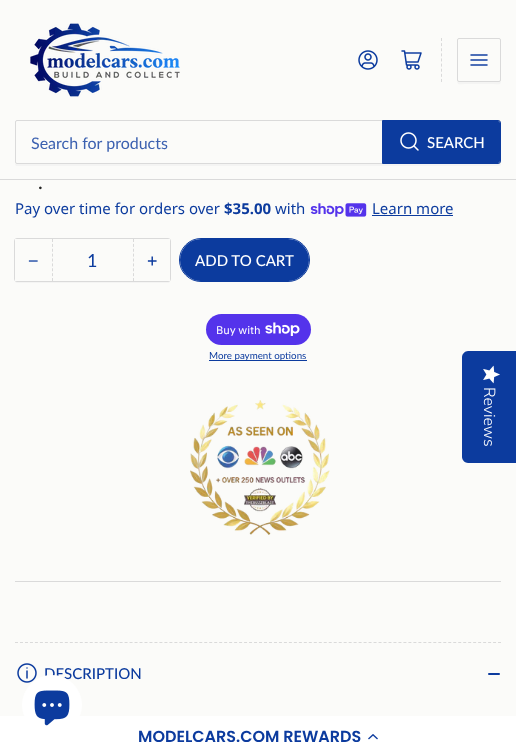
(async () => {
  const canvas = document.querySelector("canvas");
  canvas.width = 516;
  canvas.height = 756;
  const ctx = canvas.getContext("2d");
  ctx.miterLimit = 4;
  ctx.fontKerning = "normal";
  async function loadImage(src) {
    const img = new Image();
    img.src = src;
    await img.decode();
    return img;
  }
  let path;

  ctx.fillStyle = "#fbfbf9";
  ctx.fillRect(0, 0, 516, 756);
  ctx.fillStyle = "#dadada";
  ctx.fillRect(0, 179, 516, 1);
  ctx.drawImage(await loadImage("img/1.png"), 30, 23, 150, 74);
  ctx.drawImage(await loadImage("img/2.png"), 358, 50, 20, 20);
  ctx.drawImage(await loadImage("img/3.png"), 401, 50, 21, 20);
  path = new Path2D("M441.5 38V82");
  ctx.strokeStyle = "#dadada";
  ctx.setLineDash([3, 2.12]);
  ctx.stroke(path);
  ctx.fillStyle = "#f4f4f3";
  path = new Path2D("M457 80C457 86 460 84 466 84H492C498 84 501 86 501 80C501 81 500 82 499 82H459C458 82 457 81 457 80Z");
  ctx.fill(path);
  ctx.beginPath();
  ctx.roundRect(457.5, 38.5, 43, 43, 1.5);
  ctx.setLineDash([]);
  ctx.stroke();
  ctx.drawImage(await loadImage("img/4.png"), 470, 54, 18, 12);
  path = new Path2D("M15 162C15 164 15 166 17 166H499C501 166 501 164 501 162C501 163 500 164 499 164H17C16 164 15 163 15 162Z");
  ctx.fill(path);
  ctx.beginPath();
  ctx.roundRect(15.5, 120.5, 485, 43, 1.5);
  ctx.stroke();
  ctx.beginPath();
  ctx.roundRect(382.5, 120.5, 118, 43, [0, 2.5, 2.5, 0]);
  ctx.strokeStyle = "#0c3b9e";
  ctx.stroke();
  ctx.fillStyle = "#0c3b9e";
  ctx.beginPath();
  ctx.roundRect(383, 121, 117, 42, [0, 2, 2, 0]);
  ctx.fill();
  ctx.drawImage(await loadImage("img/5.png"), 400, 132, 19, 19);
  ctx.drawImage(await loadImage("img/6.png"), 310, 203, 57, 14);
  ctx.fillRect(372, 215, 81, 1);
  ctx.fillStyle = "#f4f4f3";
  path = new Path2D("M15 279C15 281 15 283 17 283H169C170 282 170 280 170 279C170 280 169 281 168 281H17C16 281 15 280 15 279Z");
  ctx.fill(path);
  ctx.beginPath();
  ctx.roundRect(14.5, 238.5, 156, 43, 2.5);
  ctx.strokeStyle = "#dadada";
  ctx.stroke();
  ctx.fillStyle = "#fbfbf9";
  ctx.fillRect(15, 239, 2, 42);
  path = new Path2D("M133.5 239V281");
  ctx.setLineDash([3, 1.88]);
  ctx.stroke(path);
  path = new Path2D("M52.5 239V281");
  ctx.stroke(path);
  ctx.fillRect(168, 239, 2, 42);
  ctx.beginPath();
  ctx.roundRect(179.5, 238.5, 130, 43, 21.5);
  ctx.strokeStyle = "#0c3b9e";
  ctx.setLineDash([]);
  ctx.stroke();
  ctx.fillStyle = "#0c3b9e";
  ctx.beginPath();
  ctx.roundRect(180, 239, 129, 42, 21);
  ctx.fill();
  ctx.fillStyle = "#5433eb";
  ctx.beginPath();
  ctx.roundRect(206, 314, 105, 31, 15.5);
  ctx.fill();
  ctx.drawImage(await loadImage("img/7.png"), 265, 322, 35, 14);
  ctx.fillStyle = "#0c3b9e";
  ctx.fillRect(209, 360, 98, 1);
  ctx.drawImage(await loadImage("img/8.png"), 190, 400, 140, 135);
  ctx.fillStyle = "#dadada";
  ctx.fillRect(15, 581, 486, 1);
  path = new Path2D("M15 642.5H501");
  ctx.strokeStyle = "#dadada";
  ctx.setLineDash([3, 1.98]);
  ctx.stroke(path);
  ctx.drawImage(await loadImage("img/9.png"), 17, 663, 20, 20);
  ctx.fillStyle = "#0c3b9e";
  ctx.beginPath();
  ctx.roundRect(488, 673, 7, 2, 1);
  ctx.fill();
  ctx.beginPath();
  ctx.roundRect(492, 673, 8, 2, 1);
  ctx.fill();
  path = new Path2D("M516 351V463H468C465 463 462 460 462 457V357C462 354 465 351 468 351Z");
  ctx.fill(path);
  ctx.drawImage(await loadImage("img/10.png"), 483, 365, 17, 19);
  ctx.fillStyle = "#ffffff";
  ctx.fillRect(0, 716, 516, 40);
  ctx.drawImage(await loadImage("img/12.png"), 368, 734, 10, 6);
  ctx.font = "16px Lato";
  ctx.fillStyle = "#3c61b0";
  ctx.fillText("Search for products", 31, 149);
  ctx.font = "500 15px Lato";
  ctx.fillStyle = "#ffffff";
  ctx.fillText("SEARCH", 427, 148);
  ctx.font = "500 20px Lato";
  ctx.fillStyle = "#232323";
  ctx.fillText(".", 38, 189);
  ctx.font = "15px Noto Sans";
  ctx.fillStyle = "#0c3b9e";
  ctx.fillText("Pay over time for orders over", 15, 214);
  ctx.font = "bold 15px Noto Sans";
  ctx.fillText("$35.00", 224, 214);
  ctx.font = "15px Noto Sans";
  ctx.fillText("with", 275, 214);
  ctx.fillText("Learn more", 372, 214);
  ctx.font = "18px Liberation Sans";
  ctx.fillText("−", 28, 267);
  ctx.font = "18px Lato";
  ctx.fillText("1", 87, 267);
  ctx.font = "500 18px Lato";
  ctx.fillText("+", 147, 267);
  ctx.font = "500 15px Lato";
  ctx.fillStyle = "#ffffff";
  ctx.fillText("ADD TO CART", 195, 266);
  ctx.font = "11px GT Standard";
  ctx.fillText("Buy with", 216, 334);
  ctx.font = "9.75px Lato";
  ctx.fillStyle = "#0c3b9e";
  ctx.fillText("More payment options", 209, 359);
  ctx.font = "500 15px Lato";
  ctx.fillText("DESCRIPTION", 44, 679);
  ctx.font = "300 16px Nunito Sans";
  ctx.fillStyle = "#ffffff";
  ctx.save();
  ctx.translate(484, 387);
  ctx.rotate(90 * Math.PI / 180);
  ctx.fillText("Reviews", 0, 0);
  ctx.restore();
  ctx.beginPath();
  ctx.arc(52, 705, 30, 0, Math.PI * 2);
  ctx.fill();
  ctx.drawImage(await loadImage("img/11.png"), 34, 690, 36, 36);
  ctx.font = "600 16px Poppins";
  ctx.fillStyle = "#0c3b9e";
  ctx.fillText("MODELCARS.COM REWARDS", 138, 742);
})();
